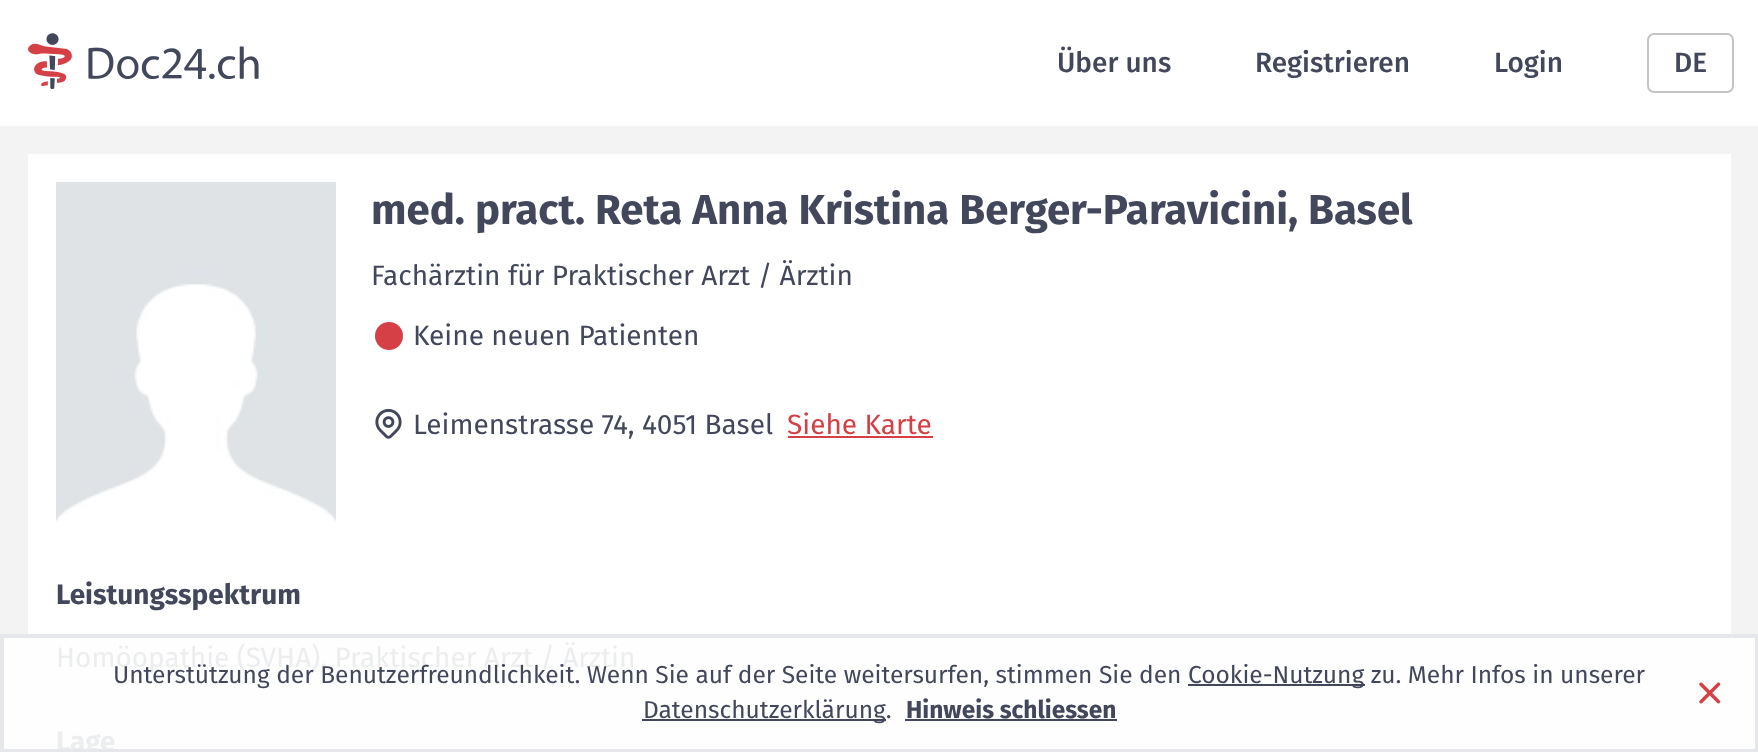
(async () => {
  const canvas = document.querySelector("canvas");
  canvas.width = 1758;
  canvas.height = 752;
  const ctx = canvas.getContext("2d");
  ctx.miterLimit = 4;
  ctx.fontKerning = "normal";
  async function loadImage(src) {
    const img = new Image();
    img.src = src;
    await img.decode();
    return img;
  }

  ctx.fillStyle = "#f3f3f3";
  ctx.fillRect(0, 0, 1758, 752);
  ctx.fillStyle = "#fefefe";
  ctx.fillRect(4, 638, 1751, 111);
  ctx.fillStyle = "#ffffff";
  ctx.fillRect(0, 0, 1758, 126);
  ctx.drawImage(await loadImage("img/1.png"), 28, 33, 231, 56);
  ctx.beginPath();
  ctx.roundRect(1648, 34, 85, 58, 6);
  ctx.strokeStyle = "#c4c4c4";
  ctx.lineWidth = 2;
  ctx.stroke();
  ctx.fillRect(28, 154, 1703, 480);
  ctx.drawImage(await loadImage("img/2.png"), 56, 182, 280, 340);
  ctx.fillStyle = "#d44045";
  ctx.beginPath();
  ctx.arc(389, 336, 14, 0, Math.PI * 2);
  ctx.fill();
  ctx.drawImage(await loadImage("img/3.png"), 375, 408, 27, 31);
  ctx.fillRect(788, 436, 145, 2);
  ctx.font = "500 28px Fira Sans";
  ctx.fillStyle = "#42475b";
  for (const [text, x, y] of [
    ["Über uns", 1057, 72],
    ["Registrieren", 1255, 72],
    ["Login", 1494, 72],
    ["DE", 1674, 72],
  ]) {
    ctx.fillText(text, x, y);
  }
  ctx.font = "bold 42px Fira Sans";
  ctx.fillText("med. pract. Reta Anna Kristina Berger-Paravicini, Basel", 371, 224);
  ctx.font = "28px Fira Sans";
  for (const [text, x, y] of [
    ["Fachärztin für Praktischer Arzt / Ärztin", 371, 285],
    ["Keine neuen Patienten", 413, 345],
    ["Leimenstrasse 74, 4051 Basel", 413, 434],
  ]) {
    ctx.fillText(text, x, y);
  }
  ctx.fillStyle = "#d44045";
  ctx.fillText("Siehe Karte", 787, 434);
  ctx.font = "bold 28px Fira Sans";
  ctx.fillStyle = "#42475b";
  ctx.fillText("Leistungsspektrum", 56, 604);
  ctx.font = "28px Fira Sans";
  ctx.fillStyle = "#ecedef";
  ctx.fillText("Homöopathie (SVHA), Praktischer Arzt / Ärztin", 56, 667);
  ctx.font = "bold 28px Fira Sans";
  ctx.fillText("Lage", 56, 751);
  ctx.strokeStyle = "#e5e7eb";
  ctx.lineWidth = 4;
  ctx.strokeRect(2, 636, 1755, 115);
  ctx.font = "24.5px Fira Sans";
  ctx.fillStyle = "#42475b";
  ctx.fillText("Unterstützung der Benutzerfreundlichkeit. Wenn Sie auf der Seite weitersurfen, stimmen Sie den", 113, 683);
  ctx.fillRect(1188, 684, 177, 2);
  ctx.fillText("Cookie-Nutzung zu. Mehr Infos in unserer", 1188, 683);
  ctx.fillRect(642, 719, 244, 2);
  ctx.fillText("Datenschutzerklärung.", 643, 718);
  ctx.font = "bold 24.5px Fira Sans";
  ctx.fillText("Hinweis schliessen", 906, 718);
  ctx.fillRect(905, 719, 212, 2);
  ctx.drawImage(await loadImage("img/4.png"), 1699, 682, 22, 22);
})();
